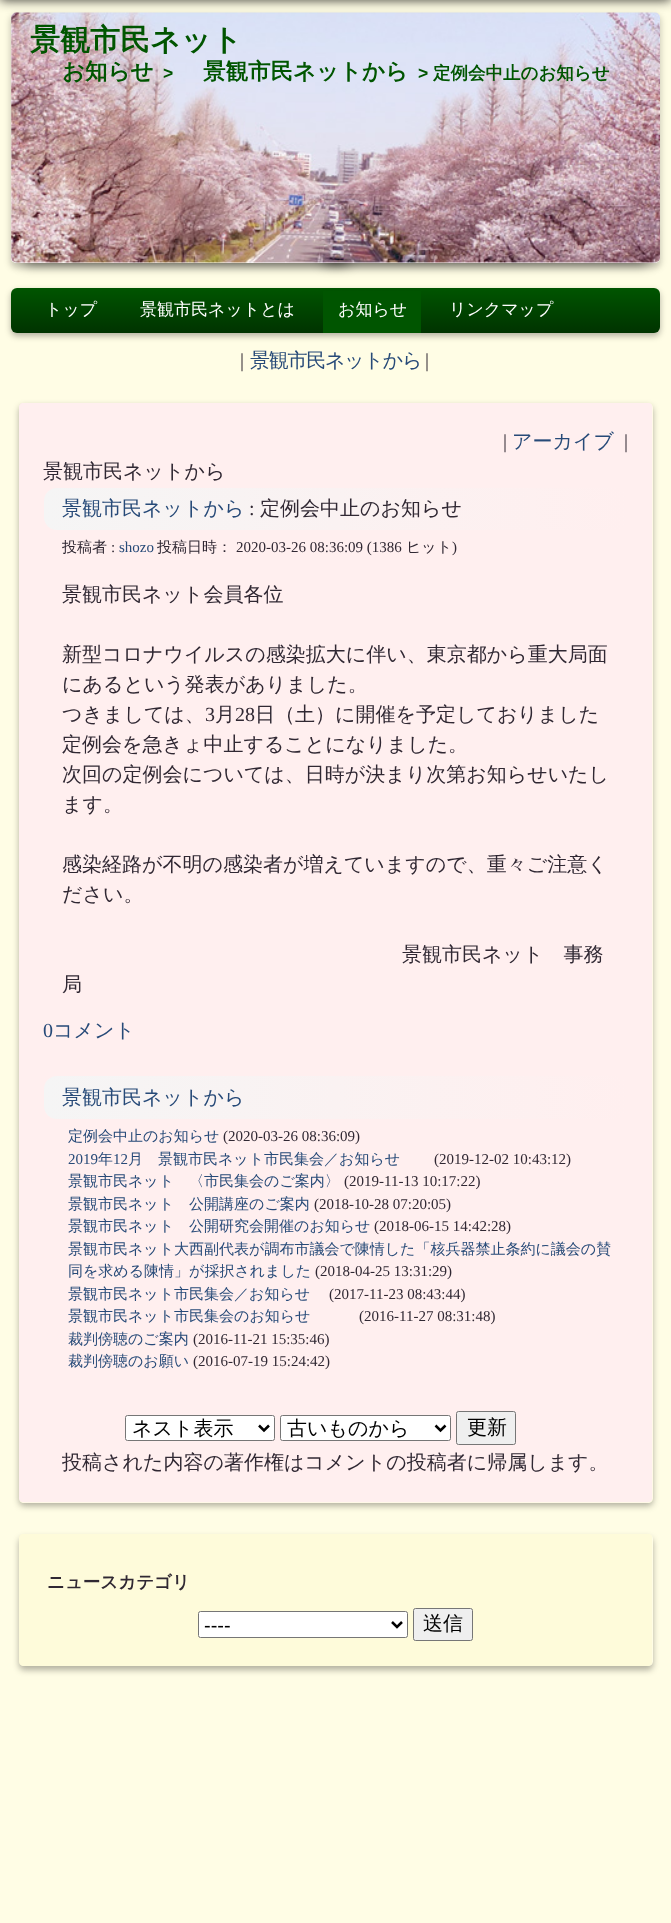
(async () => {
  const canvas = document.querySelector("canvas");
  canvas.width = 671;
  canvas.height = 1923;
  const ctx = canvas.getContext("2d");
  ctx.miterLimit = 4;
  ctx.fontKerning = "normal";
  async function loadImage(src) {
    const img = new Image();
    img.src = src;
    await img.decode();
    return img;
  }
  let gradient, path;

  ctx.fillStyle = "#fffde5";
  ctx.fillRect(0, 0, 671, 1923);
  ctx.fillStyle = "rgba(0, 0, 0, 0.2)";
  ctx.filter = "blur(3px)";
  ctx.beginPath();
  ctx.roundRect(10, 15, 651, 253, 6);
  ctx.fill();
  ctx.filter = "none";
  ctx.fillStyle = "rgba(0, 0, 0, 0.7)";
  ctx.filter = "blur(6.5px)";
  ctx.beginPath();
  ctx.rect(24, 231, 324, 32);
  ctx.fill();
  ctx.filter = "none";
  ctx.filter = "blur(6.5px)";
  ctx.beginPath();
  ctx.rect(324, 231, 324, 32);
  ctx.fill();
  ctx.filter = "none";
  ctx.fillStyle = "#ffffff";
  ctx.beginPath();
  ctx.roundRect(11, 13, 649, 250, 5);
  ctx.fill();
  ctx.drawImage(await loadImage("img/1.png"), 11, 12, 649, 251);
  ctx.fillStyle = "rgba(0, 0, 0, 0.8)";
  ctx.filter = "blur(6px)";
  ctx.beginPath();
  ctx.rect(0, -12, 671, 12);
  ctx.fill();
  ctx.filter = "none";
  ctx.fillStyle = "rgba(0, 0, 0, 0.3)";
  ctx.filter = "blur(3px)";
  ctx.beginPath();
  ctx.roundRect(11, 291, 649, 45, 6);
  ctx.fill();
  ctx.filter = "none";
  gradient = ctx.createLinearGradient(11, 288, 11, 333);
  gradient.addColorStop(0, "#005500");
  gradient.addColorStop(1, "#003300");
  ctx.fillStyle = gradient;
  ctx.beginPath();
  ctx.roundRect(11, 288, 649, 45, 6);
  ctx.fill();
  ctx.fillStyle = "#005500";
  ctx.fillRect(323, 291, 98, 42);
  ctx.save();
  path = new Path2D("M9 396H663V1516H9ZM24 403H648C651 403 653 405 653 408V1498C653 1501 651 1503 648 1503H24C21 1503 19 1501 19 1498V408C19 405 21 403 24 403Z");
  ctx.clip(path, "evenodd");
  ctx.fillStyle = "rgba(0, 0, 0, 0.3)";
  ctx.filter = "blur(3px)";
  ctx.beginPath();
  ctx.roundRect(19, 406, 634, 1100, 5);
  ctx.fill();
  ctx.filter = "none";
  ctx.restore();
  ctx.drawImage(await loadImage("img/2.png"), 19, 403, 634, 1100);
  gradient = ctx.createLinearGradient(44, 509, 628, 509);
  gradient.addColorStop(0, "#f5f5f5");
  gradient.addColorStop(1, "#ffefef");
  ctx.fillStyle = gradient;
  ctx.beginPath();
  ctx.roundRect(44, 488, 584, 42, 13);
  ctx.fill();
  gradient = ctx.createLinearGradient(44, 1098, 628, 1098);
  gradient.addColorStop(0, "#f5f5f5");
  gradient.addColorStop(1, "#ffefef");
  ctx.fillStyle = gradient;
  ctx.beginPath();
  ctx.roundRect(44, 1076, 584, 43, 13);
  ctx.fill();
  ctx.fillStyle = "#ffffff";
  ctx.beginPath();
  ctx.roundRect(125.5, 1415.5, 149, 25, 2);
  ctx.fill();
  ctx.strokeStyle = "#767676";
  ctx.stroke();
  path = new Path2D("M259 1425.5L264 1430.5L269 1425.5");
  ctx.strokeStyle = "#000000";
  ctx.lineWidth = 2.5;
  ctx.stroke(path);
  ctx.beginPath();
  ctx.roundRect(280.5, 1415.5, 170, 25, 2);
  ctx.fill();
  ctx.strokeStyle = "#767676";
  ctx.lineWidth = 1;
  ctx.stroke();
  path = new Path2D("M435.5 1425.5L440.5 1430.5L445.5 1425.5");
  ctx.strokeStyle = "#000000";
  ctx.lineWidth = 2.5;
  ctx.stroke(path);
  ctx.fillStyle = "#efefef";
  ctx.beginPath();
  ctx.roundRect(456.5, 1411.5, 59, 33, 2);
  ctx.fill();
  ctx.strokeStyle = "#767676";
  ctx.lineWidth = 1;
  ctx.stroke();
  ctx.save();
  path = new Path2D("M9 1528H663V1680H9ZM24 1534H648C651 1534 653 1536 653 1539V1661C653 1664 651 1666 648 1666H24C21 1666 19 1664 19 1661V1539C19 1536 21 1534 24 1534Z");
  ctx.clip(path, "evenodd");
  ctx.fillStyle = "rgba(0, 0, 0, 0.3)";
  ctx.filter = "blur(3px)";
  ctx.beginPath();
  ctx.roundRect(19, 1538, 634, 132, 5);
  ctx.fill();
  ctx.filter = "none";
  ctx.restore();
  ctx.drawImage(await loadImage("img/3.png"), 19, 1534, 633, 132);
  ctx.fillStyle = "#ffffff";
  ctx.beginPath();
  ctx.roundRect(198.5, 1611.5, 209, 26, 2);
  ctx.fill();
  ctx.stroke();
  path = new Path2D("M392 1622L397 1627L402 1622");
  ctx.strokeStyle = "#000000";
  ctx.lineWidth = 2.5;
  ctx.stroke(path);
  ctx.fillStyle = "#efefef";
  ctx.beginPath();
  ctx.roundRect(413.5, 1608.5, 59, 32, 2);
  ctx.fill();
  ctx.strokeStyle = "#767676";
  ctx.lineWidth = 1;
  ctx.stroke();
  ctx.font = "bold 30px WenQuanYi Zen Hei";
  ctx.fillStyle = "#005500";
  ctx.fillText("景観市民ネット", 30, 50);
  ctx.font = "bold 22.5px WenQuanYi Zen Hei";
  ctx.fillText("お知らせ", 62, 79);
  ctx.font = "bold 17.5px Liberation Sans";
  ctx.fillText(">", 163, 79);
  ctx.font = "bold 22.5px WenQuanYi Zen Hei";
  ctx.fillText("景観市民ネットから", 203, 79);
  ctx.font = "bold 17.5px Liberation Sans";
  ctx.fillText(">", 418, 79);
  ctx.font = "bold 17.5px WenQuanYi Zen Hei";
  ctx.fillText("定例会中止のお知らせ", 433, 79);
  ctx.font = "500 17px WenQuanYi Zen Hei";
  ctx.fillStyle = "#ffffff";
  for (const [text, x, y] of [
    ["トップ", 45, 315],
    ["景観市民ネットとは", 140, 315],
    ["お知らせ", 338, 315],
    ["リンクマップ", 449, 315],
  ]) {
    ctx.fillText(text, x, y);
  }
  ctx.letterSpacing = "-1.25px";
  ctx.font = "20px Liberation Serif";
  ctx.fillStyle = "#302833";
  ctx.fillText("|", 240, 367);
  ctx.font = "500 20px WenQuanYi Zen Hei";
  ctx.fillStyle = "#274a78";
  ctx.fillText("景観市民ネットから", 250, 367);
  ctx.font = "20px Liberation Serif";
  ctx.fillStyle = "#302833";
  ctx.fillText("|", 425, 367);
  ctx.letterSpacing = "0px";
  ctx.fillText("|", 503, 448);
  ctx.font = "500 20px WenQuanYi Zen Hei";
  ctx.fillStyle = "#274a78";
  ctx.fillText("アーカイブ", 512, 448);
  ctx.font = "20px Liberation Serif";
  ctx.fillStyle = "#302833";
  ctx.fillText("|", 624, 448);
  ctx.font = "500 20px WenQuanYi Zen Hei";
  ctx.fillText("景観市民ネットから", 43, 478);
  ctx.fillStyle = "#274a78";
  ctx.fillText("景観市民ネットから", 62, 515);
  ctx.font = "20px Liberation Serif";
  ctx.fillStyle = "#302833";
  ctx.fillText(":", 249, 515);
  ctx.font = "500 20px WenQuanYi Zen Hei";
  ctx.fillText("定例会中止のお知らせ", 260, 515);
  ctx.font = "500 15px WenQuanYi Zen Hei";
  ctx.fillText("投稿者", 62, 552);
  ctx.font = "15px Liberation Serif";
  ctx.fillText(":", 111, 552);
  ctx.fillStyle = "#274a78";
  ctx.fillText("shozo", 119, 552);
  ctx.font = "500 15px WenQuanYi Zen Hei";
  ctx.fillStyle = "#302833";
  ctx.fillText("投稿日時：", 157, 552);
  ctx.font = "15px Liberation Serif";
  ctx.fillText("2020-03-26 08:36:09 (1386", 236, 552);
  ctx.font = "500 15px WenQuanYi Zen Hei";
  ctx.fillText("ヒット", 406, 552);
  ctx.font = "15px Liberation Serif";
  ctx.fillText(")", 452, 552);
  ctx.font = "500 20px WenQuanYi Zen Hei";
  for (const [text, x, y] of [
    ["景観市民ネット会員各位", 62, 601],
    ["新型コロナウイルスの感染拡大に伴い、東京都から重大局面", 62, 661],
    ["にあるという発表がありました。", 62, 691],
    ["つきましては、", 62, 721],
  ]) {
    ctx.fillText(text, x, y);
  }
  ctx.font = "20px Liberation Serif";
  ctx.fillText("3", 205, 721);
  ctx.font = "500 20px WenQuanYi Zen Hei";
  ctx.fillText("月", 215, 721);
  ctx.font = "20px Liberation Serif";
  ctx.fillText("28", 235, 721);
  ctx.font = "500 20px WenQuanYi Zen Hei";
  for (const [text, x, y] of [
    ["日（土）に開催を予定しておりました", 255, 721],
    ["定例会を急きょ中止することになりました。", 62, 751],
    ["次回の定例会については、日時が決まり次第お知らせいたし", 62, 781],
    ["ます。", 62, 811],
    ["感染経路が不明の感染者が増えていますので、重々ご注意く", 62, 871],
    ["ださい。", 62, 901],
    ["景観市民ネット　事務", 402, 961],
    ["局", 62, 991],
  ]) {
    ctx.fillText(text, x, y);
  }
  ctx.font = "20px Liberation Serif";
  ctx.fillStyle = "#274a78";
  ctx.fillText("0", 43, 1037);
  ctx.font = "500 20px WenQuanYi Zen Hei";
  ctx.fillText("コメント", 53, 1037);
  ctx.fillText("景観市民ネットから", 62, 1104);
  ctx.font = "500 15px WenQuanYi Zen Hei";
  ctx.fillText("定例会中止のお知らせ", 68, 1141);
  ctx.font = "15px Liberation Serif";
  ctx.fillStyle = "#302833";
  ctx.fillText("(2020-03-26 08:36:09)", 223, 1141);
  ctx.fillStyle = "#274a78";
  ctx.fillText("2019", 68, 1164);
  ctx.font = "500 15px WenQuanYi Zen Hei";
  ctx.fillText("年", 98, 1164);
  ctx.font = "15px Liberation Serif";
  ctx.fillText("12", 113, 1164);
  ctx.font = "500 15px WenQuanYi Zen Hei";
  ctx.fillText("月　景観市民ネット市民集会／お知らせ", 128, 1164);
  ctx.font = "15px Liberation Serif";
  ctx.fillStyle = "#302833";
  ctx.fillText("(2019-12-02 10:43:12)", 434, 1164);
  ctx.font = "500 15px WenQuanYi Zen Hei";
  ctx.fillStyle = "#274a78";
  ctx.fillText("景観市民ネット　〈市民集会のご案内〉", 68, 1186);
  ctx.font = "15px Liberation Serif";
  ctx.fillStyle = "#302833";
  ctx.fillText("(2019-11-13 10:17:22)", 344, 1186);
  ctx.font = "500 15px WenQuanYi Zen Hei";
  ctx.fillStyle = "#274a78";
  ctx.fillText("景観市民ネット　公開講座のご案内", 68, 1209);
  ctx.font = "15px Liberation Serif";
  ctx.fillStyle = "#302833";
  ctx.fillText("(2018-10-28 07:20:05)", 314, 1209);
  ctx.font = "500 15px WenQuanYi Zen Hei";
  ctx.fillStyle = "#274a78";
  ctx.fillText("景観市民ネット　公開研究会開催のお知らせ", 68, 1231);
  ctx.font = "15px Liberation Serif";
  ctx.fillStyle = "#302833";
  ctx.fillText("(2018-06-15 14:42:28)", 374, 1231);
  ctx.font = "500 15px WenQuanYi Zen Hei";
  ctx.fillStyle = "#274a78";
  ctx.fillText("景観市民ネット大西副代表が調布市議会で陳情した「核兵器禁止条約に議会の賛", 68, 1254);
  ctx.fillText("同を求める陳情」が採択されました", 68, 1276);
  ctx.font = "15px Liberation Serif";
  ctx.fillStyle = "#302833";
  ctx.fillText("(2018-04-25 13:31:29)", 315, 1276);
  ctx.font = "500 15px WenQuanYi Zen Hei";
  ctx.fillStyle = "#274a78";
  ctx.fillText("景観市民ネット市民集会／お知らせ", 68, 1299);
  ctx.font = "15px Liberation Serif";
  ctx.fillStyle = "#302833";
  ctx.fillText("(2017-11-23 08:43:44)", 329, 1299);
  ctx.font = "500 15px WenQuanYi Zen Hei";
  ctx.fillStyle = "#274a78";
  ctx.fillText("景観市民ネット市民集会のお知らせ", 68, 1321);
  ctx.font = "15px Liberation Serif";
  ctx.fillStyle = "#302833";
  ctx.fillText("(2016-11-27 08:31:48)", 359, 1321);
  ctx.font = "500 15px WenQuanYi Zen Hei";
  ctx.fillStyle = "#274a78";
  ctx.fillText("裁判傍聴のご案内", 68, 1344);
  ctx.font = "15px Liberation Serif";
  ctx.fillStyle = "#302833";
  ctx.fillText("(2016-11-21 15:35:46)", 193, 1344);
  ctx.font = "500 15px WenQuanYi Zen Hei";
  ctx.fillStyle = "#274a78";
  ctx.fillText("裁判傍聴のお願い", 68, 1366);
  ctx.font = "15px Liberation Serif";
  ctx.fillStyle = "#302833";
  ctx.fillText("(2016-07-19 15:24:42)", 193, 1366);
  ctx.font = "500 20px WenQuanYi Zen Hei";
  ctx.fillStyle = "#000000";
  for (const [text, x, y] of [
    ["ネスト表示", 132, 1435],
    ["古いものから", 287, 1435],
    ["更新", 467, 1434],
  ]) {
    ctx.fillText(text, x, y);
  }
  ctx.fillStyle = "#302833";
  ctx.fillText("投稿された内容の著作権はコメントの投稿者に帰属します。", 62, 1469);
  ctx.font = "bold 17.5px WenQuanYi Zen Hei";
  ctx.fillText("ニュースカテゴリ", 47, 1588);
  ctx.font = "20px Liberation Sans";
  ctx.fillStyle = "#000000";
  ctx.fillText("----", 204, 1632);
  ctx.font = "500 20px WenQuanYi Zen Hei";
  ctx.fillText("送信", 423, 1630);
})();
